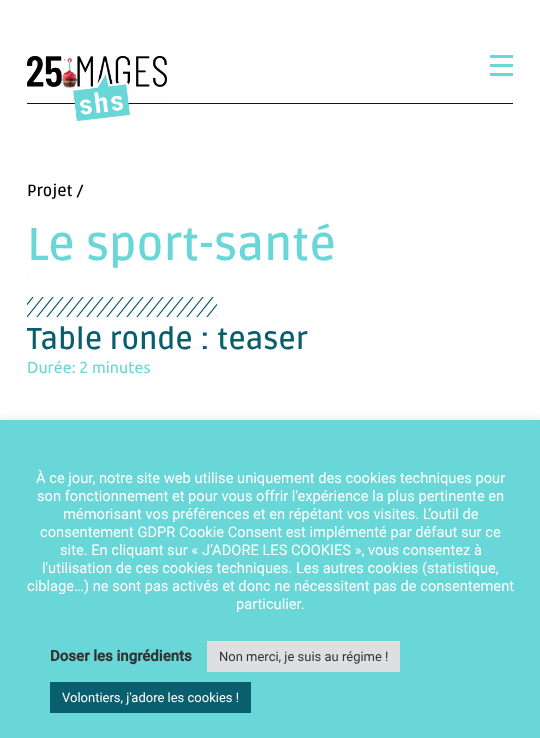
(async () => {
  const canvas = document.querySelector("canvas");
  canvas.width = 540;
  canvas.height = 738;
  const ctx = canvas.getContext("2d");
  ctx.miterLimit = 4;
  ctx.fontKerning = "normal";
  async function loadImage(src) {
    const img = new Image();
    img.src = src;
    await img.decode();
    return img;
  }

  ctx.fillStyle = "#ffffff";
  ctx.fillRect(0, 0, 540, 738);
  ctx.fillStyle = "#141414";
  ctx.fillRect(27, 103, 486, 1);
  ctx.drawImage(await loadImage("img/1.png"), 27, 56, 140, 65);
  for (const [x, y, w, h, color] of [
    [490, 64, 23, 3, "#69d6d7"],
    [490, 55, 23, 3, "#69d6d7"],
    [490, 73, 23, 3, "#69d6d7"],
    [27, 274, 1, 1, "#e5e5e5"],
  ]) {
    ctx.fillStyle = color;
    ctx.fillRect(x, y, w, h);
  }
  ctx.drawImage(await loadImage("img/2.png"), 27, 297, 190, 20);
  ctx.fillStyle = "rgba(172, 171, 171, 0.3)";
  ctx.filter = "blur(5px)";
  ctx.beginPath();
  ctx.rect(0, 419, 540, 318);
  ctx.fill();
  ctx.filter = "none";
  for (const [x, y, w, h, color] of [
    [0, 420, 540, 318, "#69d6d7"],
    [207, 641, 193, 31, "#dedfe0"],
    [50, 682, 201, 31, "#095f6d"],
  ]) {
    ctx.fillStyle = color;
    ctx.fillRect(x, y, w, h);
  }
  ctx.font = "600 16px Ruda";
  ctx.fillStyle = "#000000";
  ctx.fillText("Projet /", 27, 196);
  ctx.font = "600 46px Ruda";
  ctx.fillStyle = "#69d6d7";
  ctx.fillText("Le sport-santé", 27, 260);
  ctx.font = "600 30px Ruda";
  ctx.fillStyle = "#085e6d";
  ctx.fillText("Table ronde : teaser", 27, 349);
  ctx.font = "16px Ubuntu";
  ctx.fillStyle = "#69d6d7";
  ctx.fillText("Durée: 2 minutes", 27, 373);
  ctx.font = "14.7px Roboto";
  ctx.fillStyle = "#ffffff";
  for (const [text, x, y] of [
    ["À ce jour, notre site web utilise uniquement des cookies techniques pour", 36, 483],
    ["son fonctionnement et pour vous offrir l'expérience la plus pertinente en", 37, 501],
    ["mémorisant vos préférences et en répétant vos visites. L’outil de", 63, 519],
    ["consentement GDPR Cookie Consent est implémenté par défaut sur ce", 40, 537],
    ["site. En cliquant sur « J’ADORE LES COOKIES », vous consentez à", 60, 555],
    ["l'utilisation de ces cookies techniques. Les autres cookies (statistique,", 42, 573],
    ["ciblage…) ne sont pas activés et donc ne nécessitent pas de consentement", 27, 591],
    ["particulier.", 236, 609],
  ]) {
    ctx.fillText(text, x, y);
  }
  ctx.font = "bold 15px Roboto";
  ctx.fillStyle = "#333333";
  ctx.fillText("Doser les ingrédients", 50, 661);
  ctx.font = "13px Roboto";
  ctx.fillText("Non merci, je suis au régime !", 219, 661);
  ctx.fillStyle = "#ffffff";
  ctx.fillText("Volontiers, j'adore les cookies !", 62, 702);
})();
